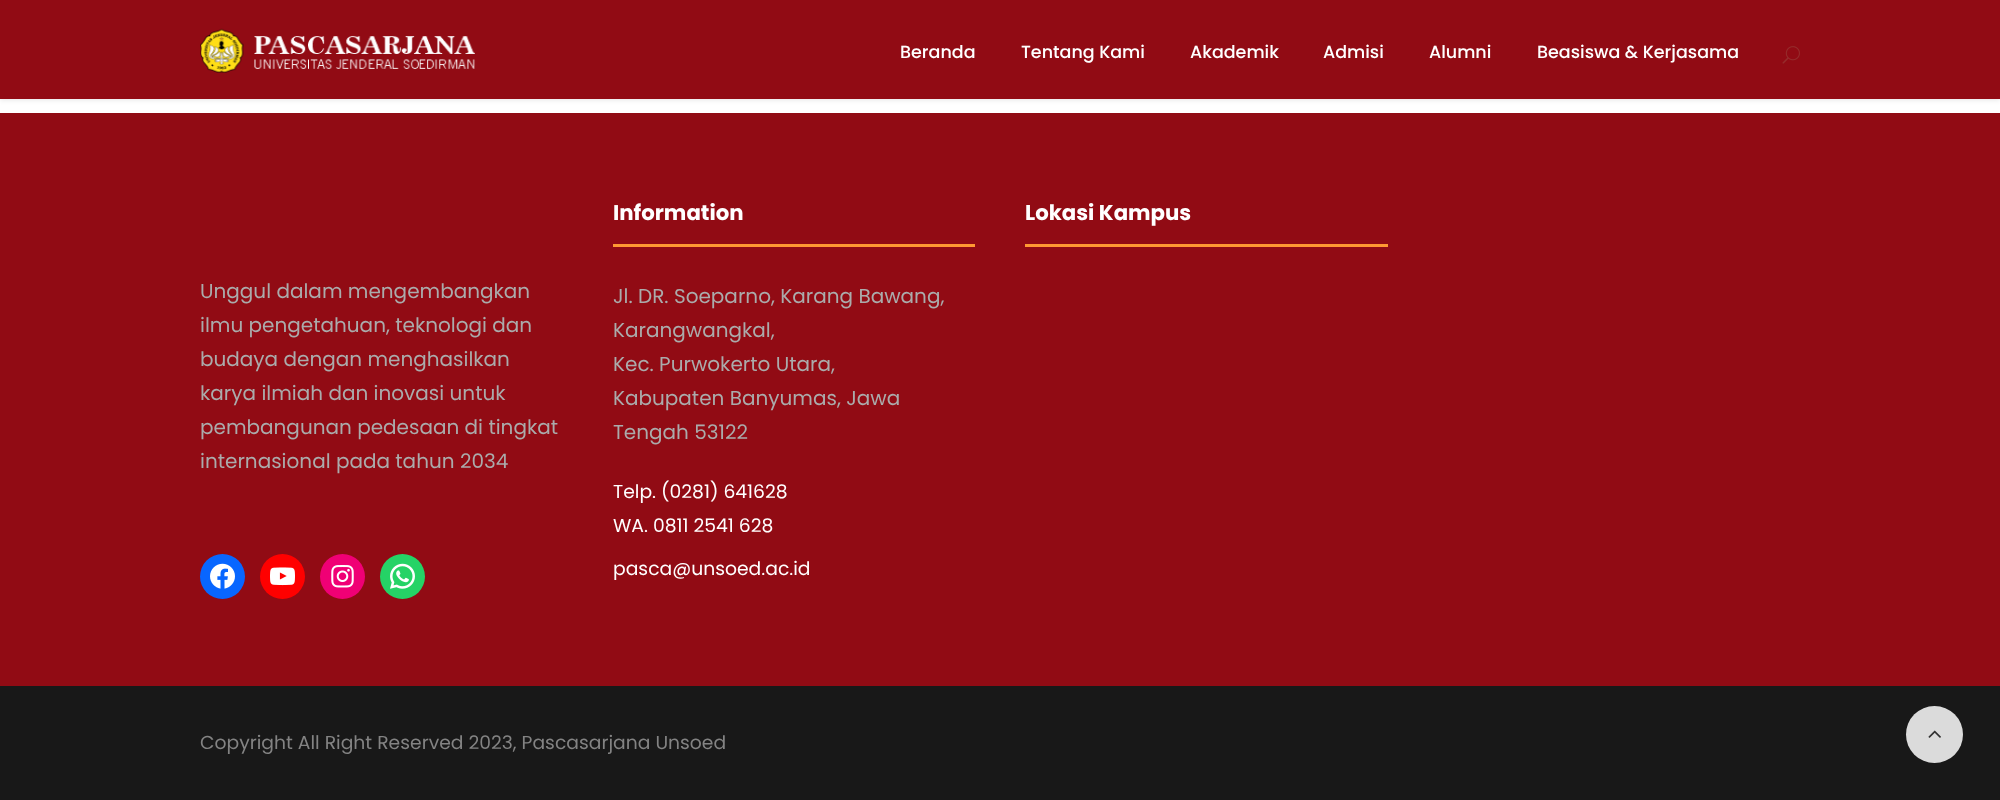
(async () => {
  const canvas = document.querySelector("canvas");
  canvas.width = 2000;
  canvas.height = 800;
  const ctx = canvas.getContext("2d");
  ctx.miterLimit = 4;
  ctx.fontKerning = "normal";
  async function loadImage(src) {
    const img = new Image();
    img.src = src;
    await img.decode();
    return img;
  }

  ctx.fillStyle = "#ffffff";
  ctx.fillRect(0, 0, 2000, 800);
  ctx.fillStyle = "rgba(0, 0, 0, 0.1)";
  ctx.filter = "blur(2.5px)";
  ctx.beginPath();
  ctx.rect(0, 1, 2000, 99);
  ctx.fill();
  ctx.filter = "none";
  ctx.fillStyle = "#910b14";
  ctx.fillRect(0, 0, 2000, 99);
  ctx.drawImage(await loadImage("img/1.png"), 200, 28, 275, 45);
  ctx.drawImage(await loadImage("img/2.png"), 1782, 46, 18, 18);
  for (const [x, y, w, h, color] of [
    [0, 113, 2000, 573, "#910b14"],
    [613, 244, 362, 3, "#ff9933"],
    [1025, 244, 363, 3, "#ff9933"],
  ]) {
    ctx.fillStyle = color;
    ctx.fillRect(x, y, w, h);
  }
  ctx.fillStyle = "#0866ff";
  ctx.beginPath();
  ctx.arc(222.5, 576.5, 22.5, 0, Math.PI * 2);
  ctx.fill();
  ctx.drawImage(await loadImage("img/3.png"), 210, 563, 25, 26);
  ctx.fillStyle = "#ff0000";
  ctx.beginPath();
  ctx.arc(282.5, 576.5, 22.5, 0, Math.PI * 2);
  ctx.fill();
  ctx.drawImage(await loadImage("img/4.png"), 270, 567, 25, 19);
  ctx.fillStyle = "#f00075";
  ctx.beginPath();
  ctx.arc(342.5, 576.5, 22.5, 0, Math.PI * 2);
  ctx.fill();
  ctx.drawImage(await loadImage("img/5.png"), 331, 565, 23, 23);
  ctx.fillStyle = "#25d366";
  ctx.beginPath();
  ctx.arc(402.5, 576.5, 22.5, 0, Math.PI * 2);
  ctx.fill();
  ctx.drawImage(await loadImage("img/6.png"), 390, 563, 25, 26);
  ctx.fillStyle = "#181818";
  ctx.fillRect(0, 686, 2000, 114);
  ctx.fillStyle = "#dbdbdb";
  ctx.beginPath();
  ctx.arc(1934.5, 734.5, 28.5, 0, Math.PI * 2);
  ctx.fill();
  ctx.drawImage(await loadImage("img/7.png"), 1928, 730, 13, 8);
  ctx.font = "500 17.5px Poppins";
  ctx.fillStyle = "#ffffff";
  for (const [text, x, y] of [
    ["Beranda", 900, 58],
    ["Tentang Kami", 1021, 58],
    ["Akademik", 1190, 58],
    ["Admisi", 1323, 58],
    ["Alumni", 1429, 58],
    ["Beasiswa & Kerjasama", 1537, 58],
  ]) {
    ctx.fillText(text, x, y);
  }
  ctx.font = "bold 21.25px Poppins";
  ctx.fillText("Information", 613, 220);
  ctx.font = "20px Poppins";
  ctx.fillStyle = "#ababab";
  for (const [text, x, y] of [
    ["Jl. DR. Soeparno, Karang Bawang,", 613, 303],
    ["Karangwangkal,", 613, 337],
    ["Kec. Purwokerto Utara,", 613, 371],
    ["Kabupaten Banyumas, Jawa", 613, 405],
    ["Tengah 53122", 613, 439],
  ]) {
    ctx.fillText(text, x, y);
  }
  ctx.font = "18.75px Poppins";
  ctx.fillStyle = "#ffffff";
  for (const [text, x, y] of [
    ["Telp. (0281) 641628", 613, 498],
    ["WA. 0811 2541 628", 613, 532],
    ["pasca@unsoed.ac.id", 613, 575],
  ]) {
    ctx.fillText(text, x, y);
  }
  ctx.font = "bold 21.25px Poppins";
  ctx.fillText("Lokasi Kampus", 1025, 220);
  ctx.font = "20px Poppins";
  ctx.fillStyle = "#ababab";
  for (const [text, x, y] of [
    ["Unggul dalam mengembangkan", 200, 298],
    ["ilmu pengetahuan, teknologi dan", 200, 332],
    ["budaya dengan menghasilkan", 200, 366],
    ["karya ilmiah dan inovasi untuk", 200, 400],
    ["pembangunan pedesaan di tingkat", 200, 434],
    ["internasional pada tahun 2034", 200, 468],
  ]) {
    ctx.fillText(text, x, y);
  }
  ctx.font = "18.75px Poppins";
  ctx.fillStyle = "#838383";
  ctx.fillText("Copyright All Right Reserved 2023, Pascasarjana Unsoed", 200, 749);
})();
